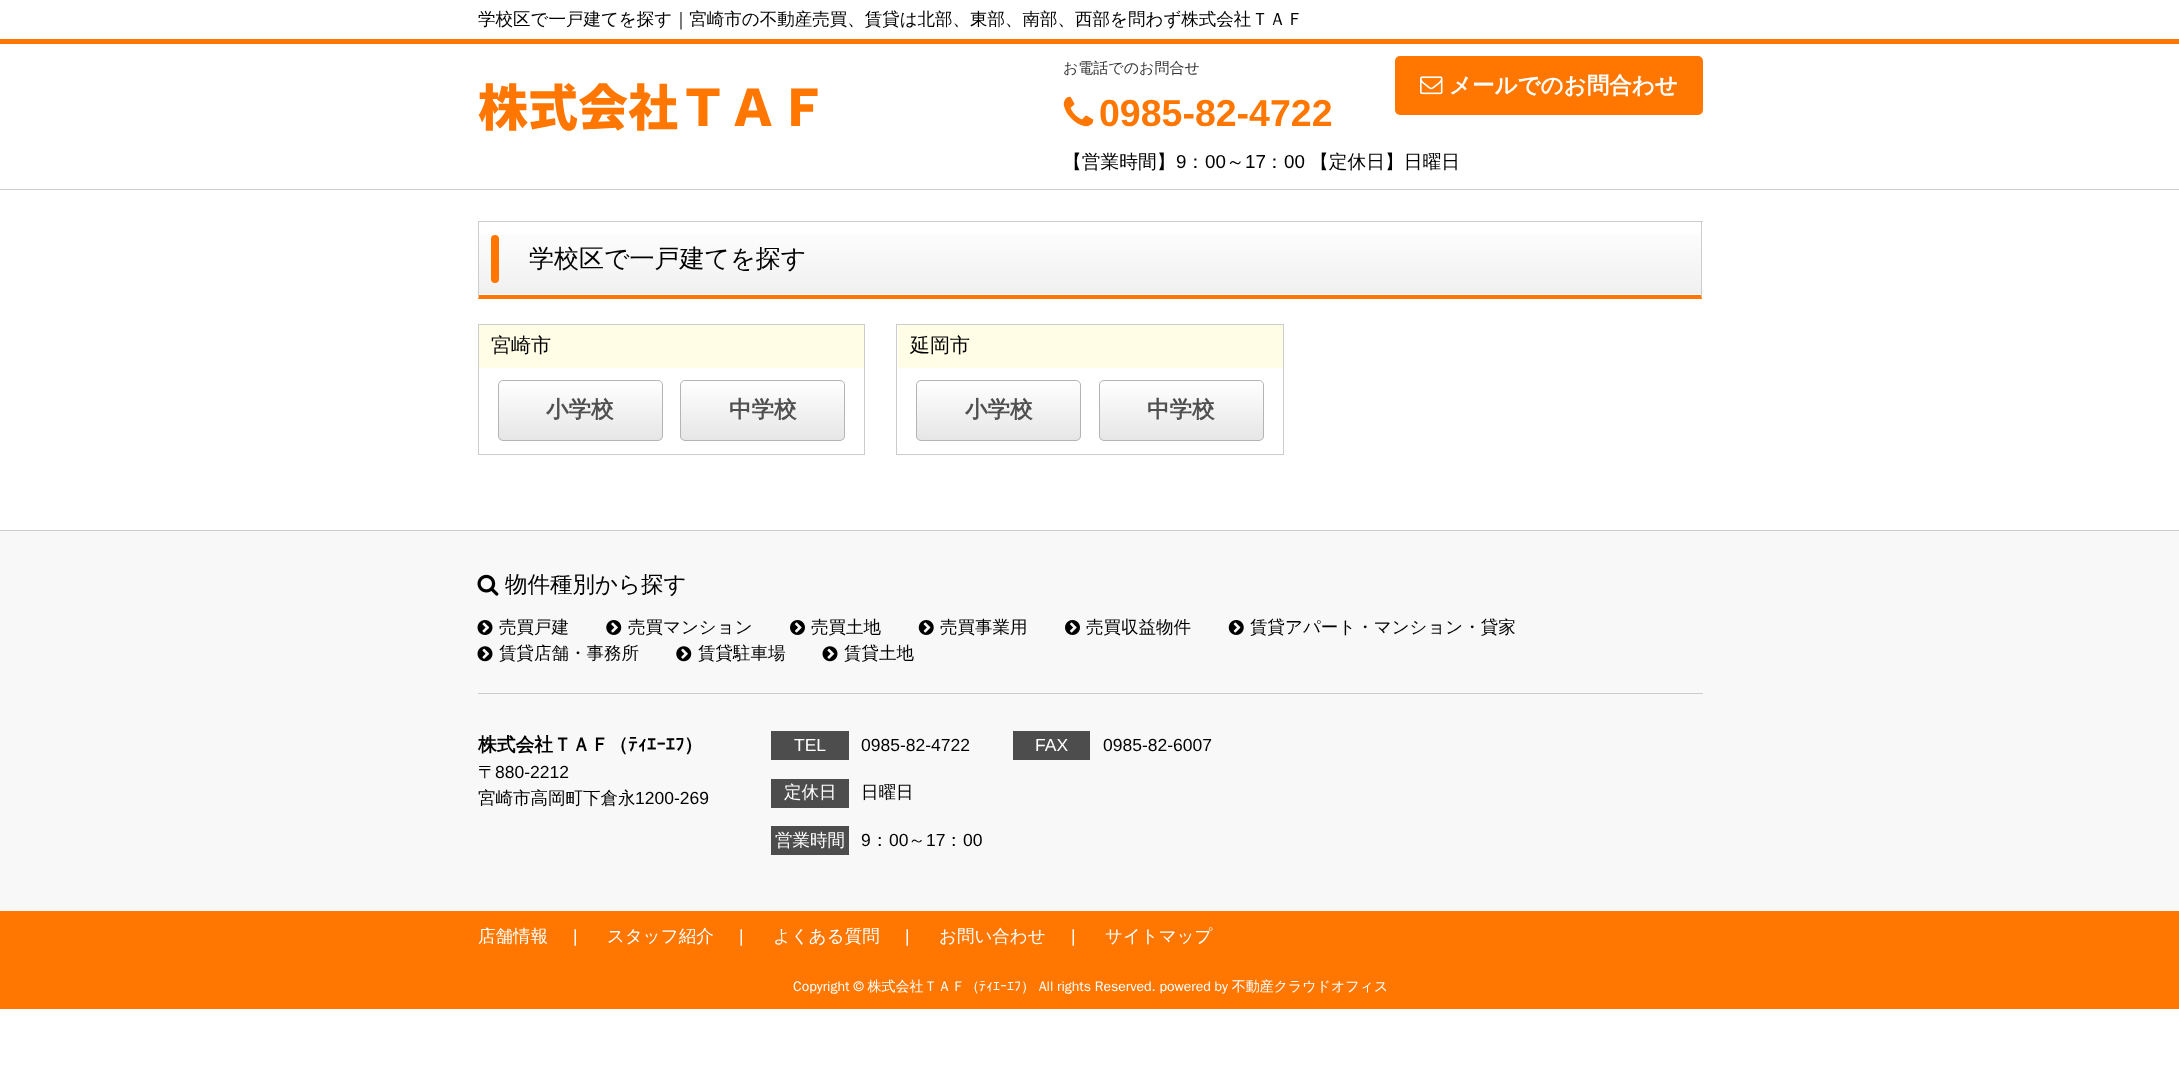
(async () => {
  const canvas = document.querySelector("canvas");
  canvas.width = 2179;
  canvas.height = 1074;
  const ctx = canvas.getContext("2d");
  ctx.miterLimit = 4;
  ctx.fontKerning = "normal";
  async function loadImage(src) {
    const img = new Image();
    img.src = src;
    await img.decode();
    return img;
  }
  let gradient, path;

  ctx.fillStyle = "#ffffff";
  ctx.fillRect(0, 0, 2179, 1074);
  ctx.fillStyle = "#ff7700";
  ctx.fillRect(0, 39, 2179, 5);
  ctx.drawImage(await loadImage("img/1.png"), 1063, 96, 31, 31);
  ctx.beginPath();
  ctx.roundRect(1395, 56, 308, 59, 5);
  ctx.fill();
  ctx.drawImage(await loadImage("img/2.png"), 1420, 76, 23, 19);
  ctx.fillStyle = "#cccccc";
  ctx.fillRect(0, 189, 2179, 1);
  gradient = ctx.createLinearGradient(1090, 222, 1090, 295);
  gradient.addColorStop(0, "#ffffff");
  gradient.addColorStop(1, "#f0f0f0");
  ctx.fillStyle = gradient;
  ctx.fillRect(479, 234, 1222, 60);
  ctx.fillStyle = "#cccccc";
  ctx.fillRect(478, 221, 1225, 1);
  path = new Path2D("M1702 221V299L1701 295V222Z");
  ctx.fill(path);
  ctx.fillStyle = "#ff7700";
  path = new Path2D("M1702 299H478L479 295H1701Z");
  ctx.fill(path);
  ctx.fillStyle = "#cccccc";
  path = new Path2D("M478 299V221L479 222V295Z");
  ctx.fill(path);
  ctx.fillStyle = "#ff7700";
  ctx.beginPath();
  ctx.roundRect(491, 235, 8, 48, 4);
  ctx.fill();
  ctx.strokeStyle = "#cccccc";
  ctx.strokeRect(478.5, 324.5, 386, 130);
  ctx.fillStyle = "#fffde5";
  ctx.fillRect(479, 325, 385, 43);
  ctx.save();
  ctx.beginPath();
  ctx.roundRect(498, 380, 165, 61, 5);
  ctx.clip();
  gradient = ctx.createLinearGradient(580, 381, 580, 440);
  gradient.addColorStop(0, "#ffffff");
  gradient.addColorStop(1, "#e6e6e6");
  ctx.fillStyle = gradient;
  ctx.fillRect(498, 381, 165, 59);
  ctx.restore();
  ctx.beginPath();
  ctx.roundRect(498.5, 380.5, 164, 60, 4.5);
  ctx.strokeStyle = "#b4b4b4";
  ctx.stroke();
  ctx.save();
  ctx.beginPath();
  ctx.roundRect(680, 380, 165, 61, 5);
  ctx.clip();
  gradient = ctx.createLinearGradient(763, 381, 763, 440);
  gradient.addColorStop(0, "#ffffff");
  gradient.addColorStop(1, "#e6e6e6");
  ctx.fillStyle = gradient;
  ctx.fillRect(680, 381, 165, 59);
  ctx.restore();
  ctx.beginPath();
  ctx.roundRect(680.5, 380.5, 164, 60, 4.5);
  ctx.stroke();
  ctx.strokeStyle = "#cccccc";
  ctx.strokeRect(896.5, 324.5, 387, 130);
  ctx.fillRect(898, 325, 385, 43);
  ctx.save();
  ctx.beginPath();
  ctx.roundRect(916, 380, 165, 61, 5);
  ctx.clip();
  gradient = ctx.createLinearGradient(999, 381, 999, 440);
  gradient.addColorStop(0, "#ffffff");
  gradient.addColorStop(1, "#e6e6e6");
  ctx.fillStyle = gradient;
  ctx.fillRect(916, 381, 165, 59);
  ctx.restore();
  ctx.beginPath();
  ctx.roundRect(916.5, 380.5, 164, 60, 4.5);
  ctx.strokeStyle = "#b4b4b4";
  ctx.stroke();
  ctx.save();
  ctx.beginPath();
  ctx.roundRect(1099, 380, 165, 61, 5);
  ctx.clip();
  gradient = ctx.createLinearGradient(1181, 381, 1181, 440);
  gradient.addColorStop(0, "#ffffff");
  gradient.addColorStop(1, "#e6e6e6");
  ctx.fillStyle = gradient;
  ctx.fillRect(1099, 381, 165, 59);
  ctx.restore();
  ctx.beginPath();
  ctx.roundRect(1099.5, 380.5, 164, 60, 4.5);
  ctx.stroke();
  for (const [x, y, w, h, color] of [
    [0, 531, 2179, 380, "#f8f8f8"],
    [0, 530, 2179, 1, "#cccccc"],
    [478, 693, 1225, 1, "#cccccc"],
  ]) {
    ctx.fillStyle = color;
    ctx.fillRect(x, y, w, h);
  }
  ctx.drawImage(await loadImage("img/3.png"), 477, 574, 22, 22);
  ctx.drawImage(await loadImage("img/4.png"), 477, 620, 16, 15);
  ctx.drawImage(await loadImage("img/5.png"), 606, 620, 16, 15);
  ctx.drawImage(await loadImage("img/6.png"), 790, 620, 15, 15);
  ctx.drawImage(await loadImage("img/7.png"), 918, 620, 16, 15);
  ctx.drawImage(await loadImage("img/6.png"), 1065, 620, 15, 15);
  ctx.drawImage(await loadImage("img/7.png"), 1228, 620, 16, 15);
  ctx.drawImage(await loadImage("img/8.png"), 477, 646, 16, 16);
  ctx.drawImage(await loadImage("img/9.png"), 676, 646, 16, 16);
  ctx.drawImage(await loadImage("img/8.png"), 822, 646, 16, 16);
  for (const [x, y, w, h, color] of [
    [771, 731, 78, 29, "#4d4d4d"],
    [1013, 731, 77, 29, "#4d4d4d"],
    [771, 779, 78, 29, "#4d4d4d"],
    [771, 826, 78, 29, "#4d4d4d"],
    [0, 911, 2179, 98, "#ff7700"],
  ]) {
    ctx.fillStyle = color;
    ctx.fillRect(x, y, w, h);
  }
  ctx.font = "500 17.5px WenQuanYi Zen Hei";
  ctx.fillStyle = "#000000";
  ctx.fillText("学校区で一戸建てを探す｜宮崎市の不動産売買、賃貸は北部、東部、南部、西部を問わず株式会社ＴＡＦ", 478, 25);
  ctx.font = "900 50px Noto Sans JP";
  ctx.fillStyle = "#ff7700";
  ctx.fillText("株式会社ＴＡＦ", 478, 126);
  ctx.font = "500 15px WenQuanYi Zen Hei";
  ctx.fillStyle = "#333333";
  ctx.fillText("お電話でのお問合せ", 1063, 73);
  ctx.font = "bold 37.5px Liberation Sans";
  ctx.fillStyle = "#ff7700";
  ctx.fillText("0985-82-4722", 1099, 126);
  ctx.font = "bold 22.5px WenQuanYi Zen Hei";
  ctx.fillStyle = "#ffffff";
  ctx.fillText("メールでのお問合わせ", 1449, 93);
  ctx.font = "500 18.75px WenQuanYi Zen Hei";
  ctx.fillStyle = "#000000";
  ctx.fillText("【営業時間】", 1063, 168);
  ctx.font = "18.75px Liberation Sans";
  ctx.fillText("9", 1176, 168);
  ctx.font = "500 18.75px WenQuanYi Zen Hei";
  ctx.fillText("：", 1186, 168);
  ctx.font = "18.75px Liberation Sans";
  ctx.fillText("00", 1205, 168);
  ctx.font = "500 18.75px WenQuanYi Zen Hei";
  ctx.fillText("～", 1226, 168);
  ctx.font = "18.75px Liberation Sans";
  ctx.fillText("17", 1245, 168);
  ctx.font = "500 18.75px WenQuanYi Zen Hei";
  ctx.fillText("：", 1265, 168);
  ctx.font = "18.75px Liberation Sans";
  ctx.fillText("00", 1284, 168);
  ctx.font = "500 18.75px WenQuanYi Zen Hei";
  ctx.fillText("【定休日】日曜日", 1310, 168);
  ctx.font = "500 25px WenQuanYi Zen Hei";
  ctx.fillText("学校区で一戸建てを探す", 529, 267);
  ctx.font = "500 20px WenQuanYi Zen Hei";
  ctx.fillText("宮崎市", 491, 352);
  ctx.font = "bold 22.5px WenQuanYi Zen Hei";
  ctx.fillStyle = "#505050";
  ctx.fillText("小学校", 546, 417);
  ctx.fillText("中学校", 729, 417);
  ctx.font = "500 20px WenQuanYi Zen Hei";
  ctx.fillStyle = "#000000";
  ctx.fillText("延岡市", 910, 352);
  ctx.font = "bold 22.5px WenQuanYi Zen Hei";
  ctx.fillStyle = "#505050";
  ctx.fillText("小学校", 965, 417);
  ctx.fillText("中学校", 1147, 417);
  ctx.font = "500 22.5px WenQuanYi Zen Hei";
  ctx.fillStyle = "#000000";
  ctx.fillText("物件種別から探す", 505, 592);
  ctx.font = "500 17.5px WenQuanYi Zen Hei";
  for (const [text, x, y] of [
    ["売買戸建", 499, 633],
    ["売買マンション", 628, 633],
    ["売買土地", 811, 633],
    ["売買事業用", 940, 633],
    ["売買収益物件", 1086, 633],
    ["賃貸アパート・マンション・貸家", 1250, 633],
    ["賃貸店舗・事務所", 499, 659],
    ["賃貸駐車場", 698, 659],
    ["賃貸土地", 844, 659],
  ]) {
    ctx.fillText(text, x, y);
  }
  ctx.font = "bold 18.75px WenQuanYi Zen Hei";
  ctx.fillText("株式会社ＴＡＦ（", 478, 751);
  ctx.font = "bold 18.75px IPAPGothic";
  ctx.fillText("ﾃｨｴｰｴﾌ", 628, 751);
  ctx.font = "bold 18.75px WenQuanYi Zen Hei";
  ctx.fillText("）", 684, 751);
  ctx.font = "500 17.5px WenQuanYi Zen Hei";
  ctx.fillText("〒", 478, 778);
  ctx.font = "17.5px Liberation Sans";
  ctx.fillText("880-2212", 495, 778);
  ctx.font = "500 17.5px WenQuanYi Zen Hei";
  ctx.fillText("宮崎市高岡町下倉永", 478, 804);
  ctx.font = "17.5px Liberation Sans";
  ctx.fillText("1200-269", 635, 804);
  ctx.fillStyle = "#ffffff";
  ctx.fillText("TEL", 794, 751);
  ctx.fillStyle = "#000000";
  ctx.fillText("0985-82-4722", 861, 751);
  ctx.fillStyle = "#ffffff";
  ctx.fillText("FAX", 1035, 751);
  ctx.fillStyle = "#000000";
  ctx.fillText("0985-82-6007", 1103, 751);
  ctx.font = "500 17.5px WenQuanYi Zen Hei";
  ctx.fillStyle = "#ffffff";
  ctx.fillText("定休日", 784, 798);
  ctx.fillStyle = "#000000";
  ctx.fillText("日曜日", 861, 798);
  ctx.fillStyle = "#ffffff";
  ctx.fillText("営業時間", 775, 846);
  ctx.font = "17.5px Liberation Sans";
  ctx.fillStyle = "#000000";
  ctx.fillText("9", 861, 846);
  ctx.font = "500 17.5px WenQuanYi Zen Hei";
  ctx.fillText("：", 871, 846);
  ctx.font = "17.5px Liberation Sans";
  ctx.fillText("00", 889, 846);
  ctx.font = "500 17.5px WenQuanYi Zen Hei";
  ctx.fillText("～", 908, 846);
  ctx.font = "17.5px Liberation Sans";
  ctx.fillText("17", 926, 846);
  ctx.font = "500 17.5px WenQuanYi Zen Hei";
  ctx.fillText("：", 945, 846);
  ctx.font = "17.5px Liberation Sans";
  ctx.fillText("00", 963, 846);
  ctx.font = "500 17.5px WenQuanYi Zen Hei";
  ctx.fillStyle = "#ffffff";
  ctx.fillText("店舗情報", 478, 942);
  ctx.font = "17.5px Liberation Sans";
  ctx.fillText("|", 573, 942);
  ctx.font = "500 17.5px WenQuanYi Zen Hei";
  ctx.fillText("スタッフ紹介", 607, 942);
  ctx.font = "17.5px Liberation Sans";
  ctx.fillText("|", 739, 942);
  ctx.font = "500 17.5px WenQuanYi Zen Hei";
  ctx.fillText("よくある質問", 773, 942);
  ctx.font = "17.5px Liberation Sans";
  ctx.fillText("|", 905, 942);
  ctx.font = "500 17.5px WenQuanYi Zen Hei";
  ctx.fillText("お問い合わせ", 939, 942);
  ctx.font = "17.5px Liberation Sans";
  ctx.fillText("|", 1071, 942);
  ctx.font = "500 17.5px WenQuanYi Zen Hei";
  ctx.fillText("サイトマップ", 1105, 942);
  ctx.wordSpacing = "-0.5px";
  ctx.font = "500 14px WenQuanYi Zen Hei";
  ctx.fillText("Copyright © 株式会社ＴＡＦ（", 793, 991);
  ctx.wordSpacing = "0px";
  ctx.font = "14px IPAPGothic";
  ctx.fillText("ﾃｨｴｰｴﾌ", 979, 991);
  ctx.wordSpacing = "-0.5px";
  ctx.font = "500 14px WenQuanYi Zen Hei";
  ctx.fillText("） All rights Reserved. powered by 不動産クラウドオフィス", 1021, 991);
})();
